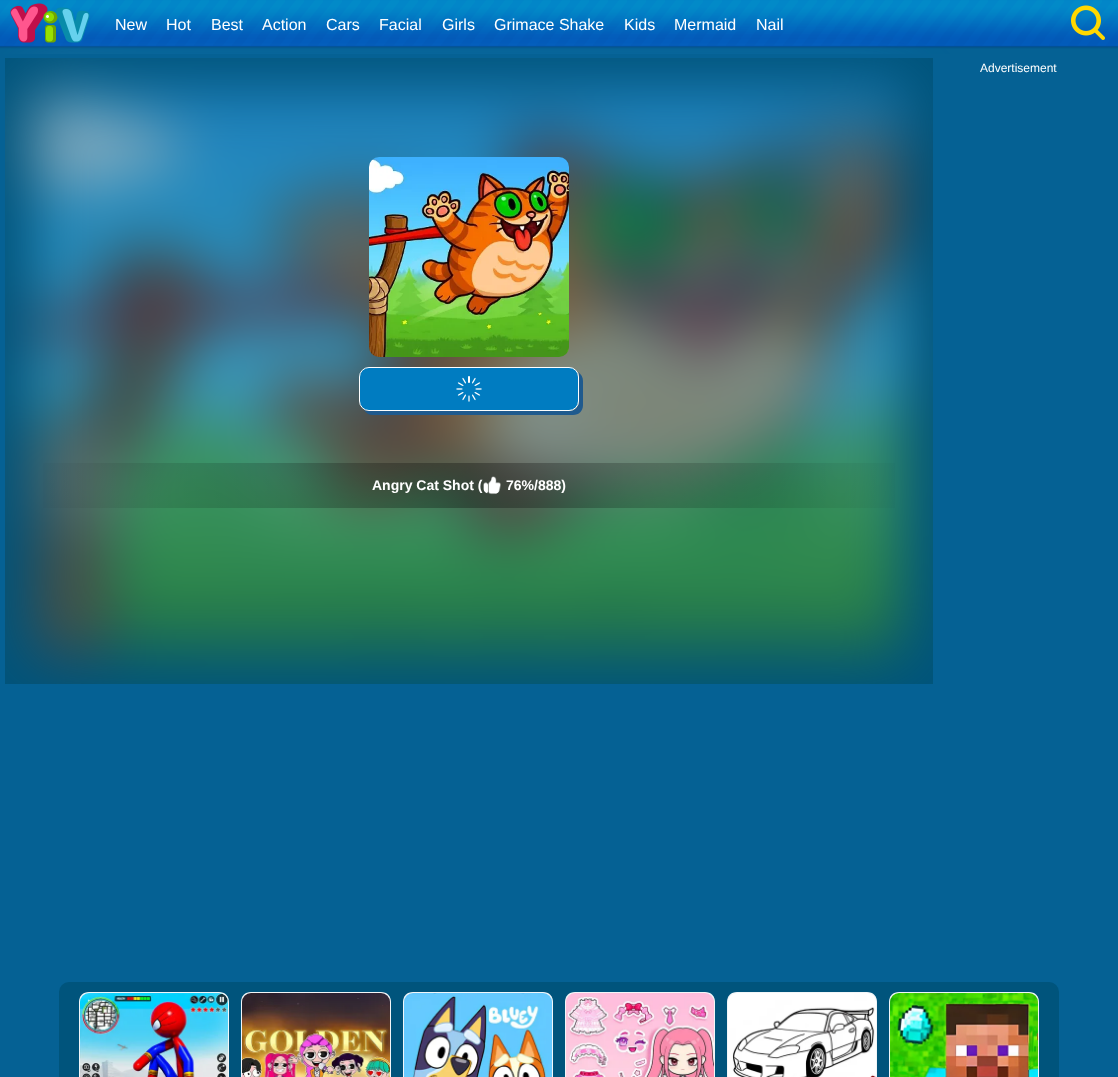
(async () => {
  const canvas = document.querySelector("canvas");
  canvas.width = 1118;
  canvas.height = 1077;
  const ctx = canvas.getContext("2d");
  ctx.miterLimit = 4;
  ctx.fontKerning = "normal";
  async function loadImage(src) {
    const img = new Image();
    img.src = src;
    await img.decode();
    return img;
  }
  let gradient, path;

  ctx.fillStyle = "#056194";
  ctx.fillRect(0, 0, 1118, 1077);
  ctx.drawImage(await loadImage("img/1.png"), 0, 0, 1118, 54);
  ctx.drawImage(await loadImage("img/2.png"), 10, 3, 80, 40);
  ctx.drawImage(await loadImage("img/3.png"), 1071, 5, 34, 35);
  ctx.fillStyle = "#00547c";
  ctx.fillRect(5, 58, 928, 626);
  ctx.drawImage(await loadImage("img/4.png"), 5, 58, 928, 626);
  ctx.drawImage(await loadImage("img/5.png"), 369, 157, 200, 200);
  ctx.fillStyle = "#1f5a8e";
  path = new Path2D("M364 410C366 413 369 415 373 415H573C579 415 583 411 583 405V381C583 377 581 374 578 372C579 374 579 375 579 377V401C579 407 575 411 569 411H369C367 411 366 411 364 410Z");
  ctx.fill(path);
  ctx.fillStyle = "#007cc1";
  ctx.beginPath();
  ctx.roundRect(359.5, 367.5, 219, 43, 9.5);
  ctx.fill();
  ctx.strokeStyle = "#ffffff";
  ctx.stroke();
  ctx.drawImage(await loadImage("img/6.png"), 456, 376, 26, 26);
  gradient = ctx.createLinearGradient(10, 486, 928, 486);
  gradient.addColorStop(0, "rgba(0, 0, 0, 0)");
  gradient.addColorStop(0.5, "rgba(0, 0, 0, 0.3)");
  gradient.addColorStop(1, "rgba(0, 0, 0, 0)");
  ctx.fillStyle = gradient;
  ctx.fillRect(43, 463, 852, 45);
  ctx.drawImage(await loadImage("img/7.png"), 483, 476, 18, 19);
  ctx.fillStyle = "#00547c";
  ctx.beginPath();
  ctx.roundRect(59, 982, 1000, 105, 10);
  ctx.fill();
  ctx.fillStyle = "#f2f6f8";
  path = new Path2D("M89 992H219C225 992 229 996 229 1002V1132C229 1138 225 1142 219 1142H89C83 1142 79 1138 79 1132V1002C79 996 83 992 89 992Z");
  ctx.fill(path);
  ctx.drawImage(await loadImage("img/8.png"), 80, 993, 148, 84);
  path = new Path2D("M251 992H381C387 992 391 996 391 1002V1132C391 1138 387 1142 381 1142H251C245 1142 241 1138 241 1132V1002C241 996 245 992 251 992Z");
  ctx.fill(path);
  ctx.drawImage(await loadImage("img/9.png"), 242, 993, 148, 84);
  path = new Path2D("M413 992H543C549 992 553 996 553 1002V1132C553 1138 549 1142 543 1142H413C407 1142 403 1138 403 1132V1002C403 996 407 992 413 992Z");
  ctx.fill(path);
  ctx.drawImage(await loadImage("img/10.png"), 404, 993, 148, 84);
  path = new Path2D("M575 992H705C711 992 715 996 715 1002V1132C715 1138 711 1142 705 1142H575C569 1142 565 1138 565 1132V1002C565 996 569 992 575 992Z");
  ctx.fill(path);
  ctx.drawImage(await loadImage("img/11.png"), 566, 993, 148, 84);
  path = new Path2D("M737 992H867C873 992 877 996 877 1002V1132C877 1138 873 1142 867 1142H737C731 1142 727 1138 727 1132V1002C727 996 731 992 737 992Z");
  ctx.fill(path);
  ctx.drawImage(await loadImage("img/12.png"), 728, 993, 148, 84);
  path = new Path2D("M899 992H1029C1035 992 1039 996 1039 1002V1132C1039 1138 1035 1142 1029 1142H899C893 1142 889 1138 889 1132V1002C889 996 893 992 899 992Z");
  ctx.fill(path);
  ctx.drawImage(await loadImage("img/13.png"), 890, 993, 148, 84);
  ctx.font = "16px Liberation Sans";
  ctx.fillStyle = "#ffffff";
  for (const [text, x, y] of [
    ["New", 115, 30],
    ["Hot", 166, 30],
    ["Best", 211, 30],
    ["Action", 262, 30],
    ["Cars", 326, 30],
    ["Facial", 379, 30],
    ["Girls", 442, 30],
    ["Grimace Shake", 494, 30],
    ["Kids", 624, 30],
    ["Mermaid", 674, 30],
    ["Nail", 756, 30],
  ]) {
    ctx.fillText(text, x, y);
  }
  ctx.font = "12px Liberation Sans";
  ctx.fillText("Advertisement", 980, 72);
  ctx.font = "bold 14px Liberation Sans";
  ctx.fillText("Angry Cat Shot (", 372, 490);
  ctx.fillText("76%/888)", 506, 490);
})();
